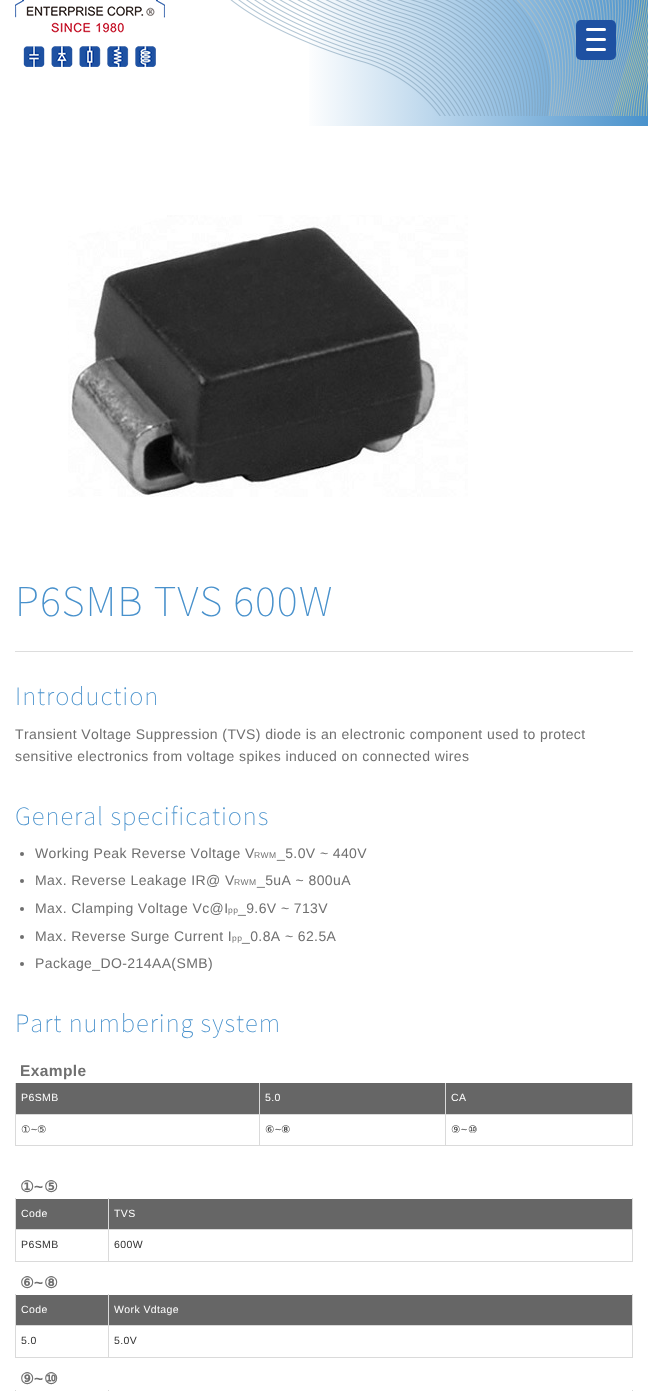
(async () => {
  const canvas = document.querySelector("canvas");
  canvas.width = 648;
  canvas.height = 1391;
  const ctx = canvas.getContext("2d");
  ctx.miterLimit = 4;
  ctx.fontKerning = "none";
  async function loadImage(src) {
    const img = new Image();
    img.src = src;
    await img.decode();
    return img;
  }
  let gradient;

  ctx.fillStyle = "#ffffff";
  ctx.fillRect(0, 0, 648, 1391);
  gradient = ctx.createLinearGradient(0, 36, 648, 36);
  gradient.addColorStop(0, "#ffffff");
  gradient.addColorStop(0.47, "#ffffff");
  gradient.addColorStop(1, "#4992cc");
  ctx.fillStyle = gradient;
  ctx.fillRect(309, 0, 339, 126);
  ctx.drawImage(await loadImage("img/1.png"), 230, 0, 418, 116);
  ctx.drawImage(await loadImage("img/2.png"), 15, 0, 150, 67);
  ctx.fillStyle = "#1e51a2";
  ctx.beginPath();
  ctx.roundRect(576, 20, 40, 40, 5);
  ctx.fill();
  ctx.fillStyle = "#ffffff";
  ctx.beginPath();
  ctx.roundRect(586, 38, 20, 3, 1.5);
  ctx.fill();
  ctx.beginPath();
  ctx.roundRect(586, 28, 20, 3, 1.5);
  ctx.fill();
  ctx.beginPath();
  ctx.roundRect(586, 48, 20, 3, 1.5);
  ctx.fill();
  ctx.drawImage(await loadImage("img/3.png"), 68, 215, 400, 282);
  ctx.fillStyle = "#dddddd";
  ctx.fillRect(15, 651, 618, 1);
  ctx.fillStyle = "#6f6f6f";
  ctx.beginPath();
  ctx.arc(22, 854, 2, 0, Math.PI * 2);
  ctx.fill();
  ctx.beginPath();
  ctx.arc(22, 881, 2, 0, Math.PI * 2);
  ctx.fill();
  ctx.beginPath();
  ctx.arc(22, 909, 2, 0, Math.PI * 2);
  ctx.fill();
  ctx.beginPath();
  ctx.arc(22, 937, 2, 0, Math.PI * 2);
  ctx.fill();
  ctx.beginPath();
  ctx.arc(22, 964, 2, 0, Math.PI * 2);
  ctx.fill();
  for (const [x, y, w, h, color] of [
    [16, 1083, 616, 31, "#666666"],
    [632, 1083, 1, 63, "#dadada"],
    [445, 1145, 188, 1, "#dadada"],
    [445, 1114, 1, 32, "#dadada"],
    [445, 1114, 188, 1, "#dadada"],
    [445, 1083, 1, 32, "#dadada"],
    [259, 1145, 187, 1, "#dadada"],
    [259, 1114, 1, 32, "#dadada"],
    [259, 1114, 187, 1, "#dadada"],
    [259, 1083, 1, 32, "#dadada"],
    [15, 1145, 245, 1, "#dadada"],
    [15, 1114, 1, 32, "#dadada"],
    [15, 1114, 245, 1, "#dadada"],
    [15, 1083, 1, 32, "#dadada"],
    [16, 1199, 616, 30, "#666666"],
    [632, 1198, 1, 64, "#dadada"],
    [108, 1261, 525, 1, "#dadada"],
    [108, 1229, 1, 33, "#dadada"],
    [108, 1229, 525, 1, "#dadada"],
    [108, 1198, 1, 32, "#dadada"],
    [15, 1261, 94, 1, "#dadada"],
    [15, 1229, 1, 33, "#dadada"],
    [15, 1229, 94, 1, "#dadada"],
    [15, 1198, 1, 32, "#dadada"],
    [16, 1295, 616, 30, "#666666"],
    [632, 1294, 1, 64, "#dadada"],
    [108, 1357, 525, 1, "#dadada"],
    [108, 1325, 1, 33, "#dadada"],
    [108, 1325, 525, 1, "#dadada"],
    [108, 1294, 1, 32, "#dadada"],
    [15, 1357, 94, 1, "#dadada"],
    [15, 1325, 1, 33, "#dadada"],
    [15, 1325, 94, 1, "#dadada"],
    [15, 1294, 1, 32, "#dadada"],
    [15, 1390, 1, 1, "#dadada"],
    [632, 1390, 1, 1, "#dadada"],
    [108, 1390, 1, 1, "#dadada"],
  ]) {
    ctx.fillStyle = color;
    ctx.fillRect(x, y, w, h);
  }
  ctx.letterSpacing = "1px";
  ctx.font = "100 40px Noto Sans TC";
  ctx.fillStyle = "#4891cc";
  ctx.fillText("P6SMB TVS 600W", 15, 616);
  ctx.font = "100 24px Noto Sans TC";
  ctx.fillText("Introduction", 15, 705);
  ctx.letterSpacing = "0.4px";
  ctx.font = "14px Liberation Sans";
  ctx.fillStyle = "#6f6f6f";
  ctx.fillText("Transient Voltage Suppression (TVS) diode is an electronic component used to protect", 15, 739);
  ctx.fillText("sensitive electronics from voltage spikes induced on connected wires", 15, 761);
  ctx.letterSpacing = "1px";
  ctx.font = "100 24px Noto Sans TC";
  ctx.fillStyle = "#4891cc";
  ctx.fillText("General specifications", 15, 825);
  ctx.letterSpacing = "0.4px";
  ctx.font = "14px Liberation Sans";
  ctx.fillStyle = "#6f6f6f";
  ctx.fillText("Working Peak Reverse Voltage V", 35, 858);
  ctx.font = "8.5px Liberation Sans";
  ctx.fillText("RWM", 254, 858);
  ctx.font = "14px Liberation Sans";
  ctx.fillText("_5.0V ~ 440V", 277, 858);
  ctx.fillText("Max. Reverse Leakage IR@ V", 35, 885);
  ctx.font = "8.5px Liberation Sans";
  ctx.fillText("RWM", 234, 885);
  ctx.font = "14px Liberation Sans";
  ctx.fillText("_5uA ~ 800uA", 257, 885);
  ctx.fillText("Max. Clamping Voltage Vc@I", 35, 913);
  ctx.font = "8.5px Liberation Sans";
  ctx.fillText("pp", 228, 913);
  ctx.font = "14px Liberation Sans";
  ctx.fillText("_9.6V ~ 713V", 238, 913);
  ctx.fillText("Max. Reverse Surge Current I", 35, 941);
  ctx.font = "8.5px Liberation Sans";
  ctx.fillText("pp", 232, 941);
  ctx.font = "14px Liberation Sans";
  ctx.fillText("_0.8A ~ 62.5A", 242, 941);
  ctx.fillText("Package_DO-214AA(SMB)", 35, 968);
  ctx.letterSpacing = "1px";
  ctx.font = "100 24px Noto Sans TC";
  ctx.fillStyle = "#4891cc";
  ctx.fillText("Part numbering system", 15, 1032);
  ctx.letterSpacing = "0.4px";
  ctx.font = "bold 15.5px Liberation Sans";
  ctx.fillStyle = "#6f6f6f";
  ctx.fillText("Example", 20, 1076);
  ctx.font = "10.5px Liberation Sans";
  ctx.fillStyle = "#ffffff";
  for (const [text, x, y] of [
    ["P6SMB", 21, 1101],
    ["5.0", 265, 1101],
    ["CA", 451, 1101],
  ]) {
    ctx.fillText(text, x, y);
  }
  ctx.font = "10.5px DejaVu Sans";
  ctx.fillStyle = "#333333";
  ctx.fillText("①", 21, 1133);
  ctx.font = "10.5px Liberation Sans";
  ctx.fillText("~", 31, 1133);
  ctx.font = "10.5px DejaVu Sans";
  ctx.fillText("⑤", 37, 1133);
  ctx.fillText("⑥", 265, 1133);
  ctx.font = "10.5px Liberation Sans";
  ctx.fillText("~", 275, 1133);
  ctx.font = "10.5px DejaVu Sans";
  ctx.fillText("⑧", 281, 1133);
  ctx.fillText("⑨", 451, 1133);
  ctx.font = "10.5px Liberation Sans";
  ctx.fillText("~", 461, 1133);
  ctx.font = "10.5px DejaVu Sans";
  ctx.fillText("⑩", 468, 1133);
  ctx.font = "bold 15.5px DejaVu Sans";
  ctx.fillStyle = "#6f6f6f";
  ctx.fillText("①", 20, 1192);
  ctx.font = "bold 15.5px Liberation Sans";
  ctx.fillText("~", 34, 1192);
  ctx.font = "bold 15.5px DejaVu Sans";
  ctx.fillText("⑤", 44, 1192);
  ctx.font = "10.5px Liberation Sans";
  ctx.fillStyle = "#ffffff";
  ctx.fillText("Code", 21, 1217);
  ctx.fillText("TVS", 114, 1217);
  ctx.fillStyle = "#333333";
  ctx.fillText("P6SMB", 21, 1248);
  ctx.fillText("600W", 114, 1248);
  ctx.font = "bold 15.5px DejaVu Sans";
  ctx.fillStyle = "#6f6f6f";
  ctx.fillText("⑥", 20, 1288);
  ctx.font = "bold 15.5px Liberation Sans";
  ctx.fillText("~", 34, 1288);
  ctx.font = "bold 15.5px DejaVu Sans";
  ctx.fillText("⑧", 44, 1288);
  ctx.font = "10.5px Liberation Sans";
  ctx.fillStyle = "#ffffff";
  ctx.fillText("Code", 21, 1313);
  ctx.fillText("Work Vdtage", 114, 1313);
  ctx.fillStyle = "#333333";
  ctx.fillText("5.0", 21, 1344);
  ctx.fillText("5.0V", 114, 1344);
  ctx.font = "bold 15.5px DejaVu Sans";
  ctx.fillStyle = "#6f6f6f";
  ctx.fillText("⑨", 20, 1384);
  ctx.font = "bold 15.5px Liberation Sans";
  ctx.fillText("~", 34, 1384);
  ctx.font = "bold 15.5px DejaVu Sans";
  ctx.fillText("⑩", 44, 1384);
})();
